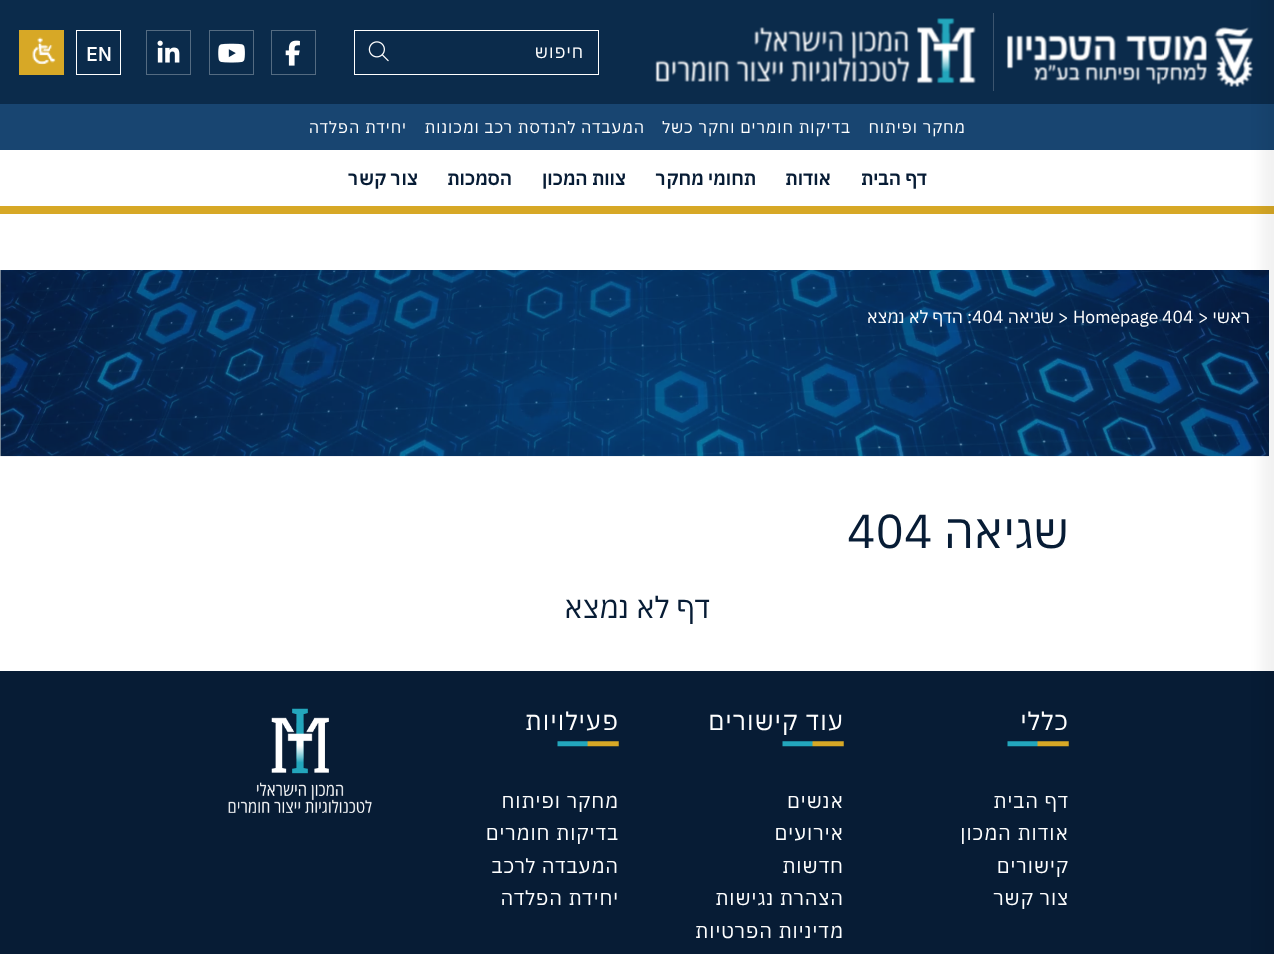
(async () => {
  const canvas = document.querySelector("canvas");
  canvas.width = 1274;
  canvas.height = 954;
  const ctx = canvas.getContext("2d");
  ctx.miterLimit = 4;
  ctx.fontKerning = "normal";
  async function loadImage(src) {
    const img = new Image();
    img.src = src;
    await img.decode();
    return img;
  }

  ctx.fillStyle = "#ffffff";
  ctx.fillRect(0, 0, 1274, 954);
  ctx.fillStyle = "#0b2b4b";
  ctx.fillRect(0, 0, 1274, 104);
  ctx.drawImage(await loadImage("img/1.png"), 1006, 27, 248, 60);
  ctx.fillStyle = "#184571";
  ctx.fillRect(0, 104, 1274, 46);
  ctx.fillStyle = "#d7a826";
  ctx.fillRect(0, 206, 1274, 8);
  ctx.drawImage(await loadImage("img/8.png"), 0, 270, 1269, 187);
  ctx.fillStyle = "#071c35";
  ctx.fillRect(0, 671, 1274, 283);
  ctx.fillStyle = "rgba(0, 0, 0, 0.05)";
  ctx.filter = "blur(6px)";
  ctx.beginPath();
  ctx.rect(1261, -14, 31, 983);
  ctx.fill();
  ctx.filter = "none";
  ctx.fillStyle = "#3c556f";
  ctx.fillRect(993, 13, 1, 78);
  ctx.drawImage(await loadImage("img/2.png"), 655, 18, 321, 66);
  ctx.strokeStyle = "#ffffff";
  ctx.strokeRect(354.5, 30.5, 244, 44);
  ctx.drawImage(await loadImage("img/3.png"), 368, 41, 21, 21);
  ctx.strokeStyle = "#546b81";
  ctx.strokeRect(271.5, 30.5, 44, 44);
  ctx.drawImage(await loadImage("img/4.png"), 285, 40, 15, 26);
  ctx.strokeRect(209.5, 30.5, 44, 44);
  ctx.drawImage(await loadImage("img/5.png"), 218, 43, 27, 20);
  ctx.strokeRect(146.5, 30.5, 44, 44);
  ctx.drawImage(await loadImage("img/6.png"), 157, 40, 23, 23);
  ctx.strokeStyle = "#ffffff";
  ctx.strokeRect(76.5, 30.5, 44, 44);
  ctx.fillStyle = "#d7a826";
  ctx.fillRect(19, 30, 45, 45);
  ctx.drawImage(await loadImage("img/7.png"), 32, 37, 24, 28);
  ctx.drawImage(await loadImage("img/9.png"), 1007, 741, 62, 6);
  ctx.drawImage(await loadImage("img/9.png"), 782, 741, 62, 6);
  ctx.drawImage(await loadImage("img/10.png"), 557, 741, 62, 6);
  ctx.drawImage(await loadImage("img/11.png"), 228, 708, 144, 105);
  ctx.letterSpacing = "1px";
  ctx.direction = "rtl";
  ctx.font = "17.5px IBM Plex Sans Hebrew";
  ctx.fillStyle = "#ffffff";
  ctx.fillText("חיפוש", 584, 58);
  ctx.letterSpacing = "0px";
  ctx.direction = "ltr";
  ctx.font = "500 20px IBM Plex Sans Hebrew";
  ctx.fillText("EN", 86, 61);
  ctx.letterSpacing = "1px";
  ctx.direction = "rtl";
  ctx.font = "16.25px IBM Plex Sans Hebrew";
  for (const [text, x, y] of [
    ["מחקר ופיתוח", 966, 133],
    ["בדיקות חומרים וחקר כשל", 851, 133],
    ["המעבדה להנדסת רכב ומכונות", 645, 133],
    ["יחידת הפלדה", 407, 133],
  ]) {
    ctx.fillText(text, x, y);
  }
  ctx.letterSpacing = "0px";
  ctx.font = "600 18.75px IBM Plex Sans Hebrew";
  ctx.fillStyle = "#071c35";
  for (const [text, x, y] of [
    ["דף הבית", 927, 185],
    ["אודות", 831, 185],
    ["תחומי מחקר", 756, 185],
    ["צוות המכון", 626, 185],
    ["הסמכות", 512, 185],
    ["צור קשר", 418, 185],
  ]) {
    ctx.fillText(text, x, y);
  }
  ctx.font = "17.5px IBM Plex Sans Hebrew";
  ctx.fillStyle = "#ffffff";
  ctx.fillText("ראשי", 1250, 323);
  ctx.direction = "ltr";
  for (const [text, x, y] of [
    [">", 1198, 323],
    ["404", 1162, 323],
    ["Homepage", 1073, 323],
    [">", 1058, 323],
  ]) {
    ctx.fillText(text, x, y);
  }
  ctx.direction = "rtl";
  ctx.fillText("שגיאה", 1054, 323);
  ctx.direction = "ltr";
  ctx.fillText("404", 972, 323);
  ctx.direction = "rtl";
  ctx.fillText(": הדף לא נמצא", 972, 323);
  ctx.font = "47.5px IBM Plex Sans Hebrew";
  ctx.fillStyle = "#071c35";
  ctx.fillText("שגיאה", 1069, 548);
  ctx.direction = "ltr";
  ctx.fillText("404", 847, 548);
  ctx.direction = "rtl";
  ctx.font = "30px IBM Plex Sans Hebrew";
  ctx.fillText("דף לא נמצא", 710, 618);
  ctx.letterSpacing = "1.25px";
  ctx.font = "25px IBM Plex Sans Hebrew";
  ctx.fillStyle = "#ffffff";
  ctx.fillText("כללי", 1069, 730);
  ctx.letterSpacing = "1px";
  ctx.font = "20px IBM Plex Sans Hebrew";
  for (const [text, x, y] of [
    ["דף הבית", 1069, 808],
    ["אודות המכון", 1069, 840],
    ["קישורים", 1069, 873],
    ["צור קשר", 1069, 905],
  ]) {
    ctx.fillText(text, x, y);
  }
  ctx.letterSpacing = "1.25px";
  ctx.font = "25px IBM Plex Sans Hebrew";
  ctx.fillText("עוד קישורים", 844, 730);
  ctx.letterSpacing = "1px";
  ctx.font = "20px IBM Plex Sans Hebrew";
  for (const [text, x, y] of [
    ["אנשים", 844, 808],
    ["אירועים", 844, 840],
    ["חדשות", 844, 873],
    ["הצהרת נגישות", 844, 905],
    ["מדיניות הפרטיות", 844, 938],
  ]) {
    ctx.fillText(text, x, y);
  }
  ctx.letterSpacing = "1.25px";
  ctx.font = "25px IBM Plex Sans Hebrew";
  ctx.fillText("פעילויות", 619, 730);
  ctx.letterSpacing = "1px";
  ctx.font = "20px IBM Plex Sans Hebrew";
  for (const [text, x, y] of [
    ["מחקר ופיתוח", 619, 808],
    ["בדיקות חומרים", 619, 840],
    ["המעבדה לרכב", 619, 873],
    ["יחידת הפלדה", 619, 905],
  ]) {
    ctx.fillText(text, x, y);
  }
})();
